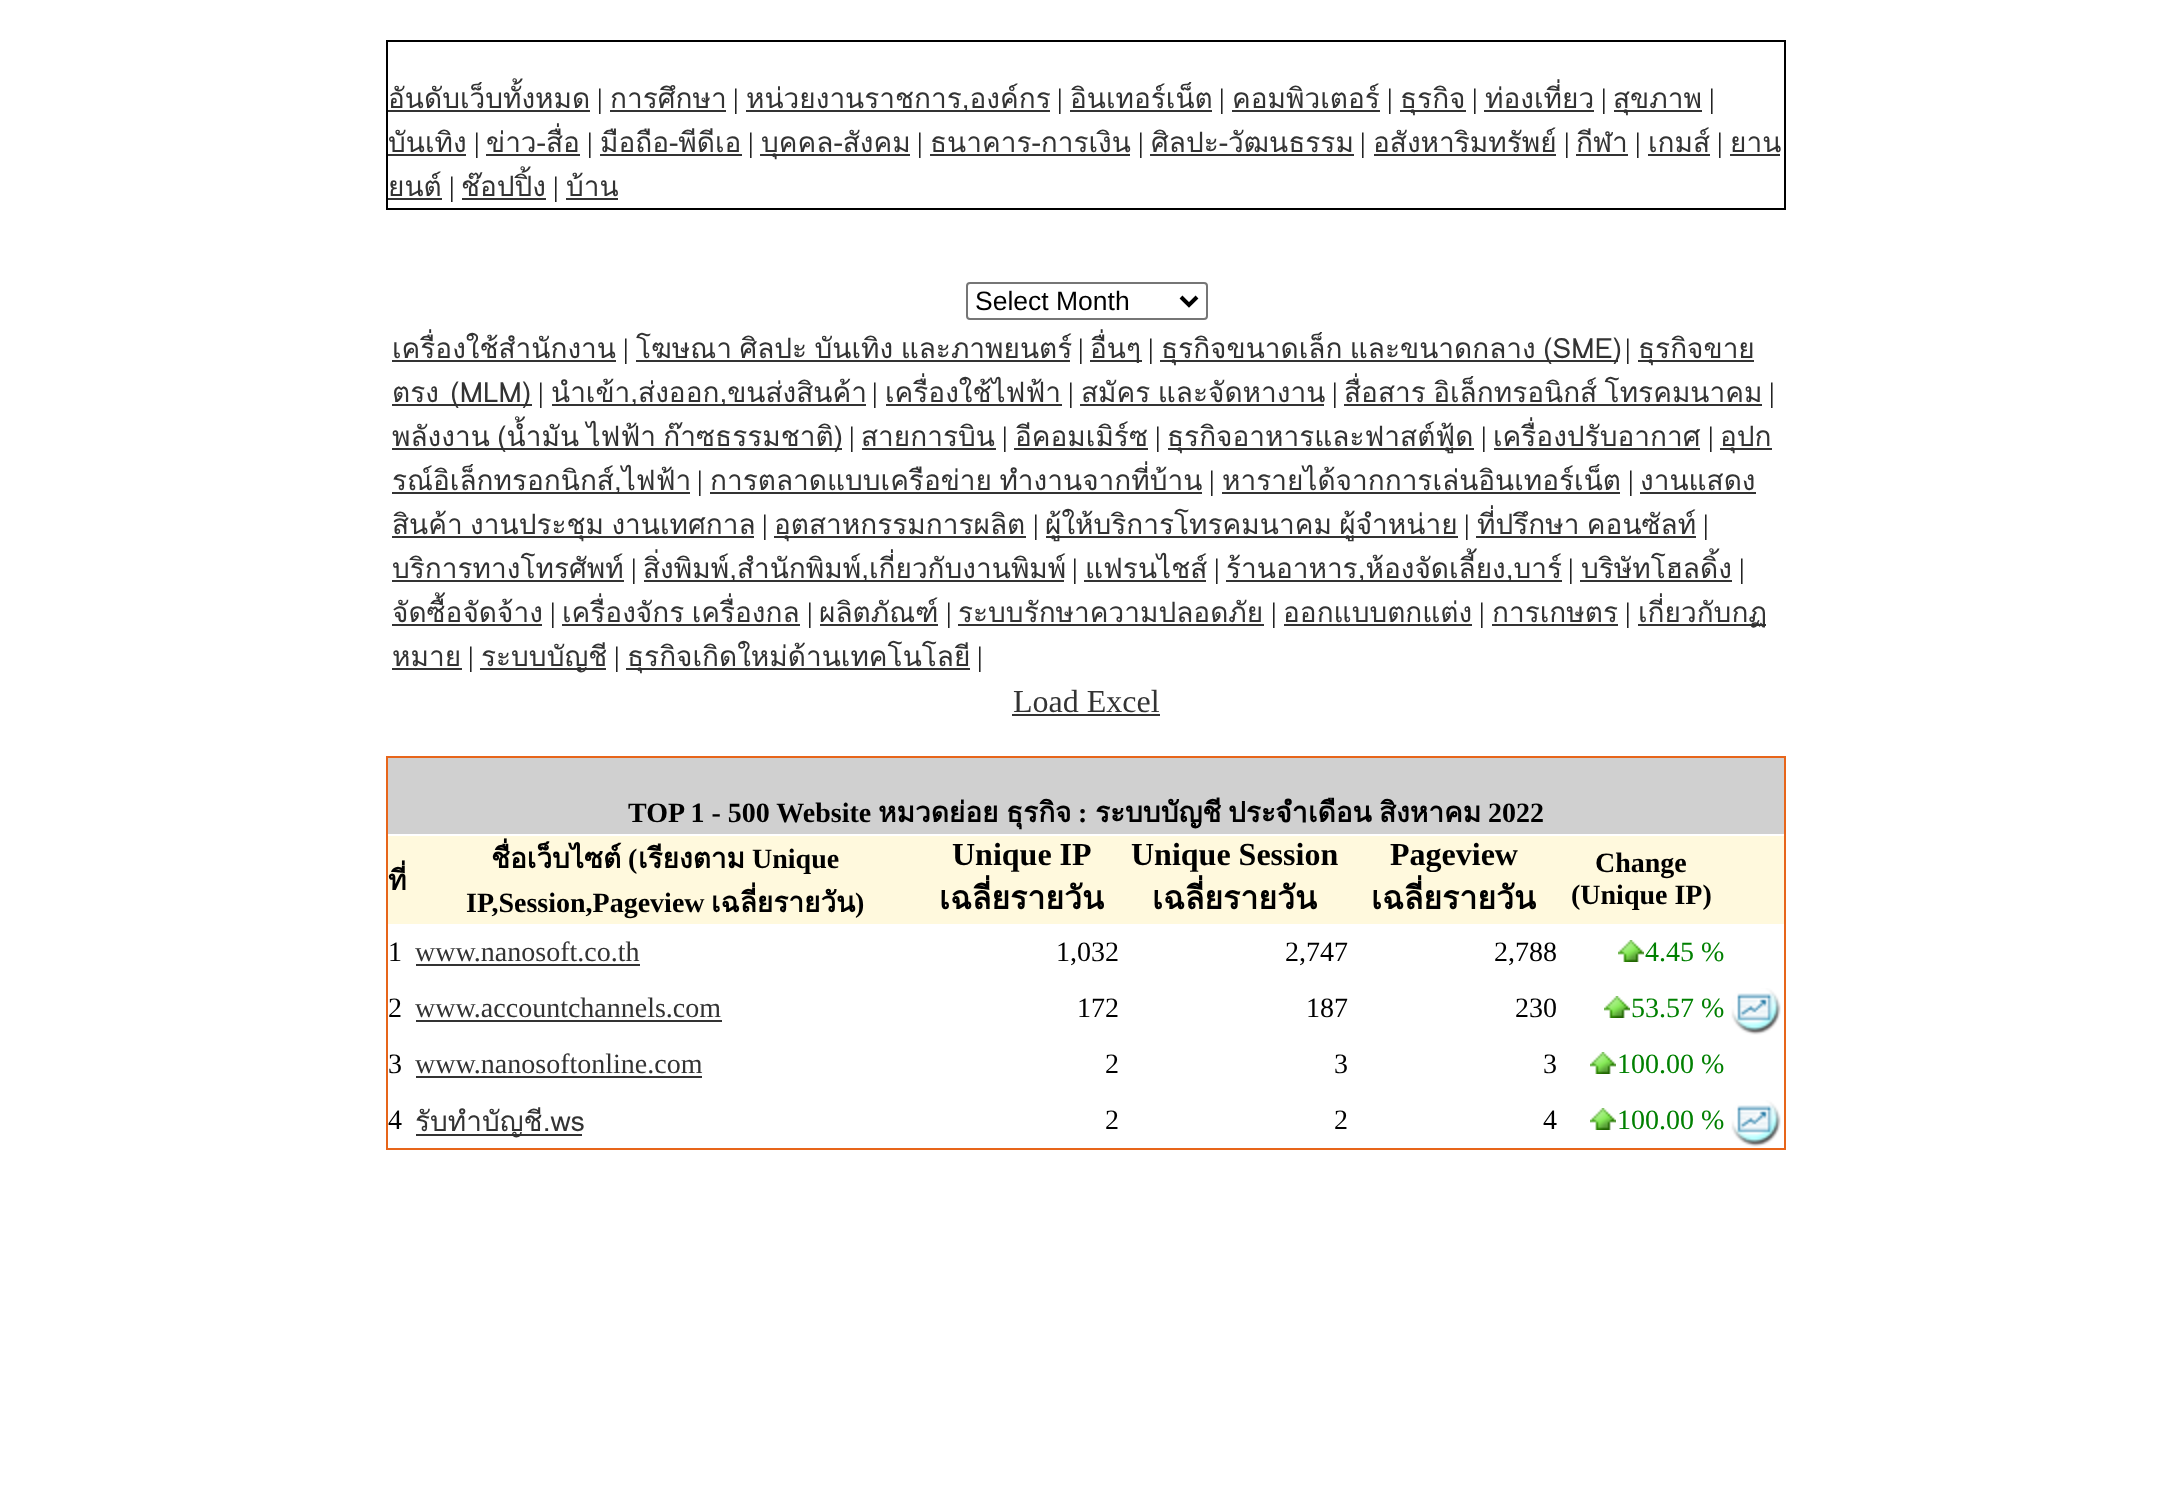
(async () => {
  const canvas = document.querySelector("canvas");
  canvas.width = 2172;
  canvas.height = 1505;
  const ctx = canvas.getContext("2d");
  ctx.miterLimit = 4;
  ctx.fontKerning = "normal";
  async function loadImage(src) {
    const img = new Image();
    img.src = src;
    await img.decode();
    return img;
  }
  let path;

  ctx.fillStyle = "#ffffff";
  ctx.fillRect(0, 0, 2172, 1505);
  for (const [x, y, w, h, color] of [
    [386, 40, 1400, 2, "#000000"],
    [1784, 40, 2, 170, "#000000"],
    [386, 208, 1400, 2, "#000000"],
    [386, 40, 2, 170, "#000000"],
    [388, 110, 202, 2, "#333333"],
    [610, 110, 116, 2, "#333333"],
    [746, 110, 304, 2, "#333333"],
    [1070, 110, 142, 2, "#333333"],
    [1232, 110, 148, 2, "#333333"],
    [1400, 110, 66, 2, "#333333"],
    [1484, 110, 110, 2, "#333333"],
    [1614, 110, 88, 2, "#333333"],
    [388, 154, 78, 2, "#333333"],
    [486, 154, 94, 2, "#333333"],
    [600, 154, 142, 2, "#333333"],
    [760, 154, 150, 2, "#333333"],
    [930, 154, 200, 2, "#333333"],
    [1150, 154, 204, 2, "#333333"],
    [1374, 154, 182, 2, "#333333"],
    [1576, 154, 52, 2, "#333333"],
    [1648, 154, 62, 2, "#333333"],
    [1730, 154, 50, 2, "#333333"],
    [388, 198, 54, 2, "#333333"],
    [462, 198, 84, 2, "#333333"],
    [566, 198, 52, 2, "#333333"],
  ]) {
    ctx.fillStyle = color;
    ctx.fillRect(x, y, w, h);
  }
  ctx.beginPath();
  ctx.roundRect(967, 283, 240, 36, 3);
  ctx.strokeStyle = "#767676";
  ctx.lineWidth = 2;
  ctx.stroke();
  path = new Path2D("M1181 297L1189 305L1197 297");
  ctx.strokeStyle = "#000000";
  ctx.lineWidth = 4;
  ctx.stroke(path);
  for (const [x, y, w, h, color] of [
    [392, 360, 224, 2, "#333333"],
    [636, 360, 434, 2, "#333333"],
    [1090, 360, 52, 2, "#333333"],
    [1160, 360, 458, 2, "#333333"],
    [1638, 360, 116, 2, "#333333"],
    [392, 404, 140, 2, "#333333"],
    [552, 404, 314, 2, "#333333"],
    [886, 404, 176, 2, "#333333"],
    [1080, 404, 244, 2, "#333333"],
    [1344, 404, 418, 2, "#333333"],
    [392, 448, 450, 2, "#333333"],
    [862, 448, 134, 2, "#333333"],
    [1014, 448, 134, 2, "#333333"],
    [1168, 448, 306, 2, "#333333"],
    [1494, 448, 206, 2, "#333333"],
    [1720, 448, 52, 2, "#333333"],
    [392, 492, 298, 2, "#333333"],
    [710, 492, 492, 2, "#333333"],
    [1222, 492, 398, 2, "#333333"],
    [1640, 492, 116, 2, "#333333"],
    [392, 536, 362, 2, "#333333"],
    [774, 536, 252, 2, "#333333"],
    [1046, 536, 412, 2, "#333333"],
    [1476, 536, 220, 2, "#333333"],
    [392, 580, 232, 2, "#333333"],
    [644, 580, 420, 2, "#333333"],
    [1084, 580, 122, 2, "#333333"],
    [1226, 580, 336, 2, "#333333"],
    [1580, 580, 152, 2, "#333333"],
    [392, 624, 150, 2, "#333333"],
    [562, 624, 238, 2, "#333333"],
    [820, 624, 118, 2, "#333333"],
    [958, 624, 306, 2, "#333333"],
    [1284, 624, 188, 2, "#333333"],
    [1492, 624, 126, 2, "#333333"],
    [1638, 624, 128, 2, "#333333"],
    [392, 668, 70, 2, "#333333"],
    [480, 668, 126, 2, "#333333"],
    [626, 668, 344, 2, "#333333"],
    [1012, 714, 148, 2, "#333333"],
    [386, 756, 1400, 394, "#e7651a"],
    [388, 834, 1396, 314, "#ffffff"],
    [388, 758, 1396, 76, "#d0d0d0"],
    [388, 836, 1396, 88, "#fff9dd"],
    [416, 964, 224, 2, "#333333"],
  ]) {
    ctx.fillStyle = color;
    ctx.fillRect(x, y, w, h);
  }
  ctx.drawImage(await loadImage("img/1.png"), 1618, 940, 26, 22);
  ctx.fillRect(416, 1020, 306, 2);
  ctx.drawImage(await loadImage("img/1.png"), 1604, 996, 26, 22);
  ctx.drawImage(await loadImage("img/2.png"), 1731, 988, 50, 47);
  ctx.fillRect(416, 1076, 286, 2);
  ctx.drawImage(await loadImage("img/1.png"), 1590, 1052, 26, 22);
  ctx.fillRect(416, 1134, 166, 2);
  ctx.drawImage(await loadImage("img/1.png"), 1590, 1108, 26, 22);
  ctx.drawImage(await loadImage("img/2.png"), 1731, 1100, 50, 47);
  ctx.font = "28px Loma";
  ctx.fillText("อันดับเว็บทั้งหมด", 388, 108);
  ctx.font = "28px Liberation Serif";
  ctx.fillStyle = "#000000";
  ctx.fillText("|", 597, 108);
  ctx.font = "28px Loma";
  ctx.fillStyle = "#333333";
  ctx.fillText("การศึกษา", 610, 108);
  ctx.font = "28px Liberation Serif";
  ctx.fillStyle = "#000000";
  ctx.fillText("|", 733, 108);
  ctx.font = "28px Loma";
  ctx.fillStyle = "#333333";
  for (const [text, x, y] of [
    ["หน่วยงานราชการ,องค์กร", 746, 108],
    ["คอมพิวเตอร์", 1232, 108],
    ["ธุรกิจ", 1400, 108],
    ["ท่องเที่ยว", 1485, 108],
  ]) {
    ctx.fillText(text, x, y);
  }
  ctx.font = "28px Liberation Serif";
  ctx.fillStyle = "#000000";
  ctx.fillText("|", 1057, 108);
  ctx.font = "28px Loma";
  ctx.fillStyle = "#333333";
  ctx.fillText("อินเทอร์เน็ต", 1070, 108);
  ctx.font = "28px Liberation Serif";
  ctx.fillStyle = "#000000";
  for (const [text, x, y] of [
    ["|", 1219, 108],
    ["|", 1387, 108],
    ["|", 1472, 108],
    ["|", 1601, 108],
  ]) {
    ctx.fillText(text, x, y);
  }
  ctx.font = "28px Loma";
  ctx.fillStyle = "#333333";
  ctx.fillText("สุขภาพ", 1613, 108);
  ctx.font = "28px Liberation Serif";
  ctx.fillStyle = "#000000";
  ctx.fillText("|", 1709, 108);
  ctx.font = "28px Loma";
  ctx.fillStyle = "#333333";
  ctx.fillText("บันเทิง", 388, 152);
  ctx.font = "28px Liberation Serif";
  ctx.fillStyle = "#000000";
  ctx.fillText("|", 474, 152);
  ctx.font = "28px Loma";
  ctx.fillStyle = "#333333";
  for (const [text, x, y] of [
    ["ข่าว-สื่อ", 486, 152],
    ["บุคคล-สังคม", 761, 152],
    ["ธนาคาร-การเงิน", 930, 152],
    ["อสังหาริมทรัพย์", 1373, 152],
    ["เกมส์", 1648, 152],
  ]) {
    ctx.fillText(text, x, y);
  }
  ctx.font = "28px Liberation Serif";
  ctx.fillStyle = "#000000";
  ctx.fillText("|", 587, 152);
  ctx.font = "28px Loma";
  ctx.fillStyle = "#333333";
  ctx.fillText("มือถือ-พีดีเอ", 600, 152);
  ctx.font = "28px Liberation Serif";
  ctx.fillStyle = "#000000";
  for (const [text, x, y] of [
    ["|", 748, 152],
    ["|", 917, 152],
    ["|", 1138, 152],
  ]) {
    ctx.fillText(text, x, y);
  }
  ctx.font = "28px Loma";
  ctx.fillStyle = "#333333";
  ctx.fillText("ศิลปะ-วัฒนธรรม", 1151, 152);
  ctx.font = "28px Liberation Serif";
  ctx.fillStyle = "#000000";
  ctx.fillText("|", 1360, 152);
  ctx.fillText("|", 1564, 152);
  ctx.font = "28px Loma";
  ctx.fillStyle = "#333333";
  ctx.fillText("กีฬา", 1576, 152);
  ctx.font = "28px Liberation Serif";
  ctx.fillStyle = "#000000";
  ctx.fillText("|", 1635, 152);
  ctx.fillText("|", 1717, 152);
  ctx.font = "28px Loma";
  ctx.fillStyle = "#333333";
  ctx.fillText("ยาน", 1730, 152);
  ctx.fillText("ยนต์", 388, 196);
  ctx.font = "28px Liberation Serif";
  ctx.fillStyle = "#000000";
  ctx.fillText("|", 449, 196);
  ctx.font = "28px Loma";
  ctx.fillStyle = "#333333";
  ctx.fillText("ช๊อปปิ้ง", 461, 196);
  ctx.font = "28px Liberation Serif";
  ctx.fillStyle = "#000000";
  ctx.fillText("|", 553, 196);
  ctx.font = "28px Loma";
  ctx.fillStyle = "#333333";
  ctx.fillText("บ้าน", 566, 196);
  ctx.font = "26.5px Liberation Sans";
  ctx.fillStyle = "#000000";
  ctx.fillText("Select Month", 975, 310);
  ctx.font = "28px Loma";
  ctx.fillStyle = "#333333";
  ctx.fillText("เครื่องใช้สำนักงาน", 392, 358);
  ctx.font = "28px Liberation Serif";
  ctx.fillStyle = "#000000";
  ctx.fillText("|", 623, 358);
  ctx.wordSpacing = "-2px";
  ctx.font = "28px Loma";
  ctx.fillStyle = "#333333";
  ctx.fillText("โฆษณา ศิลปะ บันเทิง และภาพยนตร์", 636, 358);
  ctx.fillText("ธุรกิจขนาดเล็ก และขนาดกลาง (SME)", 1161, 358);
  ctx.wordSpacing = "0px";
  ctx.fillText("ธุรกิจขาย", 1638, 358);
  ctx.font = "28px Liberation Serif";
  ctx.fillStyle = "#000000";
  ctx.fillText("|", 1078, 358);
  ctx.font = "28px Loma";
  ctx.fillStyle = "#333333";
  ctx.fillText("อื่นๆ", 1090, 358);
  ctx.font = "28px Liberation Serif";
  ctx.fillStyle = "#000000";
  ctx.fillText("|", 1148, 358);
  ctx.fillText("|", 1625, 358);
  ctx.wordSpacing = "2px";
  ctx.font = "28px Loma";
  ctx.fillStyle = "#333333";
  ctx.fillText("ตรง (MLM)", 392, 402);
  ctx.wordSpacing = "0px";
  ctx.font = "28px Liberation Serif";
  ctx.fillStyle = "#000000";
  ctx.fillText("|", 538, 402);
  ctx.font = "28px Loma";
  ctx.fillStyle = "#333333";
  ctx.fillText("นำเข้า,ส่งออก,ขนส่งสินค้า", 551, 402);
  ctx.font = "28px Liberation Serif";
  ctx.fillStyle = "#000000";
  ctx.fillText("|", 872, 402);
  ctx.font = "28px Loma";
  ctx.fillStyle = "#333333";
  ctx.fillText("เครื่องใช้ไฟฟ้า", 885, 402);
  ctx.font = "28px Liberation Serif";
  ctx.fillStyle = "#000000";
  ctx.fillText("|", 1068, 402);
  ctx.wordSpacing = "-2px";
  ctx.font = "28px Loma";
  ctx.fillStyle = "#333333";
  ctx.fillText("สมัคร และจัดหางาน", 1081, 402);
  ctx.wordSpacing = "0px";
  ctx.font = "28px Liberation Serif";
  ctx.fillStyle = "#000000";
  ctx.fillText("|", 1332, 402);
  ctx.wordSpacing = "-2px";
  ctx.font = "28px Loma";
  ctx.fillStyle = "#333333";
  ctx.fillText("สื่อสาร อิเล็กทรอนิกส์ โทรคมนาคม", 1344, 402);
  ctx.wordSpacing = "0px";
  ctx.font = "28px Liberation Serif";
  ctx.fillStyle = "#000000";
  ctx.fillText("|", 1769, 402);
  ctx.wordSpacing = "-2px";
  ctx.font = "28px Loma";
  ctx.fillStyle = "#333333";
  ctx.fillText("พลังงาน (น้ำมัน ไฟฟ้า ก๊าซธรรมชาติ)", 392, 446);
  ctx.wordSpacing = "0px";
  ctx.font = "28px Liberation Serif";
  ctx.fillStyle = "#000000";
  ctx.fillText("|", 849, 446);
  ctx.font = "28px Loma";
  ctx.fillStyle = "#333333";
  for (const [text, x, y] of [
    ["สายการบิน", 861, 446],
    ["ธุรกิจอาหารและฟาสต์ฟู้ด", 1167, 446],
    ["เครื่องปรับอากาศ", 1493, 446],
    ["อุปก", 1720, 446],
  ]) {
    ctx.fillText(text, x, y);
  }
  ctx.font = "28px Liberation Serif";
  ctx.fillStyle = "#000000";
  ctx.fillText("|", 1002, 446);
  ctx.font = "28px Loma";
  ctx.fillStyle = "#333333";
  ctx.fillText("อีคอมเมิร์ซ", 1015, 446);
  ctx.font = "28px Liberation Serif";
  ctx.fillStyle = "#000000";
  for (const [text, x, y] of [
    ["|", 1155, 446],
    ["|", 1481, 446],
    ["|", 1708, 446],
  ]) {
    ctx.fillText(text, x, y);
  }
  ctx.font = "28px Loma";
  ctx.fillStyle = "#333333";
  ctx.fillText("รณ์อิเล็กทรอกนิกส์,ไฟฟ้า", 392, 490);
  ctx.font = "28px Liberation Serif";
  ctx.fillStyle = "#000000";
  ctx.fillText("|", 697, 490);
  ctx.wordSpacing = "-2px";
  ctx.font = "28px Loma";
  ctx.fillStyle = "#333333";
  ctx.fillText("การตลาดแบบเครือข่าย ทำงานจากที่บ้าน", 710, 490);
  ctx.wordSpacing = "0px";
  ctx.font = "28px Liberation Serif";
  ctx.fillStyle = "#000000";
  ctx.fillText("|", 1209, 490);
  ctx.font = "28px Loma";
  ctx.fillStyle = "#333333";
  ctx.fillText("หารายได้จากการเล่นอินเทอร์เน็ต", 1222, 490);
  ctx.font = "28px Liberation Serif";
  ctx.fillStyle = "#000000";
  ctx.fillText("|", 1628, 490);
  ctx.font = "28px Loma";
  ctx.fillStyle = "#333333";
  ctx.fillText("งานแสดง", 1640, 490);
  ctx.wordSpacing = "-2px";
  ctx.fillText("สินค้า งานประชุม งานเทศกาล", 392, 534);
  ctx.wordSpacing = "0px";
  ctx.font = "28px Liberation Serif";
  ctx.fillStyle = "#000000";
  ctx.fillText("|", 762, 534);
  ctx.font = "28px Loma";
  ctx.fillStyle = "#333333";
  ctx.fillText("อุตสาหกรรมการผลิต", 774, 534);
  ctx.font = "28px Liberation Serif";
  ctx.fillStyle = "#000000";
  ctx.fillText("|", 1033, 534);
  ctx.wordSpacing = "-2px";
  ctx.font = "28px Loma";
  ctx.fillStyle = "#333333";
  ctx.fillText("ผู้ให้บริการโทรคมนาคม ผู้จำหน่าย", 1045, 534);
  ctx.wordSpacing = "0px";
  ctx.font = "28px Liberation Serif";
  ctx.fillStyle = "#000000";
  ctx.fillText("|", 1464, 534);
  ctx.wordSpacing = "-2px";
  ctx.font = "28px Loma";
  ctx.fillStyle = "#333333";
  ctx.fillText("ที่ปรึกษา คอนซัลท์", 1477, 534);
  ctx.wordSpacing = "0px";
  ctx.font = "28px Liberation Serif";
  ctx.fillStyle = "#000000";
  ctx.fillText("|", 1703, 534);
  ctx.font = "28px Loma";
  ctx.fillStyle = "#333333";
  for (const [text, x, y] of [
    ["บริการทางโทรศัพท์", 392, 578],
    ["แฟรนไชส์", 1085, 578],
    ["บริษัทโฮลดิ้ง", 1581, 578],
  ]) {
    ctx.fillText(text, x, y);
  }
  ctx.font = "28px Liberation Serif";
  ctx.fillStyle = "#000000";
  ctx.fillText("|", 631, 578);
  ctx.font = "28px Loma";
  ctx.fillStyle = "#333333";
  ctx.fillText("สิ่งพิมพ์,สำนักพิมพ์,เกี่ยวกับงานพิมพ์", 643, 578);
  ctx.font = "28px Liberation Serif";
  ctx.fillStyle = "#000000";
  ctx.fillText("|", 1072, 578);
  ctx.fillText("|", 1214, 578);
  ctx.font = "28px Loma";
  ctx.fillStyle = "#333333";
  ctx.fillText("ร้านอาหาร,ห้องจัดเลี้ยง,บาร์", 1226, 578);
  ctx.font = "28px Liberation Serif";
  ctx.fillStyle = "#000000";
  ctx.fillText("|", 1568, 578);
  ctx.fillText("|", 1739, 578);
  ctx.font = "28px Loma";
  ctx.fillStyle = "#333333";
  ctx.fillText("จัดซื้อจัดจ้าง", 392, 622);
  ctx.font = "28px Liberation Serif";
  ctx.fillStyle = "#000000";
  ctx.fillText("|", 550, 622);
  ctx.wordSpacing = "-2px";
  ctx.font = "28px Loma";
  ctx.fillStyle = "#333333";
  ctx.fillText("เครื่องจักร เครื่องกล", 562, 622);
  ctx.wordSpacing = "0px";
  ctx.font = "28px Liberation Serif";
  ctx.fillStyle = "#000000";
  ctx.fillText("|", 807, 622);
  ctx.font = "28px Loma";
  ctx.fillStyle = "#333333";
  ctx.fillText("ผลิตภัณฑ์", 819, 622);
  ctx.font = "28px Liberation Serif";
  ctx.fillStyle = "#000000";
  ctx.fillText("|", 946, 622);
  ctx.font = "28px Loma";
  ctx.fillStyle = "#333333";
  ctx.fillText("ระบบรักษาความปลอดภัย", 958, 622);
  ctx.font = "28px Liberation Serif";
  ctx.fillStyle = "#000000";
  ctx.fillText("|", 1271, 622);
  ctx.font = "28px Loma";
  ctx.fillStyle = "#333333";
  ctx.fillText("ออกแบบตกแต่ง", 1283, 622);
  ctx.font = "28px Liberation Serif";
  ctx.fillStyle = "#000000";
  ctx.fillText("|", 1479, 622);
  ctx.font = "28px Loma";
  ctx.fillStyle = "#333333";
  ctx.fillText("การเกษตร", 1492, 622);
  ctx.font = "28px Liberation Serif";
  ctx.fillStyle = "#000000";
  ctx.fillText("|", 1625, 622);
  ctx.font = "28px Loma";
  ctx.fillStyle = "#333333";
  ctx.fillText("เกี่ยวกับกฏ", 1638, 622);
  ctx.fillText("หมาย", 392, 666);
  ctx.font = "28px Liberation Serif";
  ctx.fillStyle = "#000000";
  ctx.fillText("|", 468, 666);
  ctx.font = "28px Loma";
  ctx.fillStyle = "#333333";
  ctx.fillText("ระบบบัญชี", 481, 666);
  ctx.font = "28px Liberation Serif";
  ctx.fillStyle = "#000000";
  ctx.fillText("|", 614, 666);
  ctx.font = "28px Loma";
  ctx.fillStyle = "#333333";
  ctx.fillText("ธุรกิจเกิดใหม่ด้านเทคโนโลยี", 627, 666);
  ctx.font = "28px Liberation Serif";
  ctx.fillStyle = "#000000";
  ctx.fillText("|", 977, 666);
  ctx.font = "32px Liberation Serif";
  ctx.fillStyle = "#333333";
  ctx.fillText("Load Excel", 1013, 712);
  ctx.font = "bold 28px Liberation Serif";
  ctx.fillStyle = "#000000";
  ctx.fillText("TOP 1 - 500 Website", 628, 822);
  ctx.font = "bold 28px Loma";
  ctx.fillText("หมวดย่อย", 878, 822);
  ctx.fillText("ธุรกิจ", 1006, 822);
  ctx.font = "bold 28px Liberation Serif";
  ctx.fillText(":", 1078, 822);
  ctx.font = "bold 28px Loma";
  for (const [text, x, y] of [
    ["ระบบบัญชี", 1095, 822],
    ["ประจำเดือน", 1228, 822],
    ["สิงหาคม", 1379, 822],
  ]) {
    ctx.fillText(text, x, y);
  }
  ctx.font = "bold 28px Liberation Serif";
  ctx.fillText("2022", 1488, 822);
  ctx.font = "bold 28px Loma";
  ctx.fillText("ที่", 388, 890);
  ctx.fillText("ชื่อเว็บไซต์", 491, 868);
  ctx.font = "bold 28px Liberation Serif";
  ctx.fillText("(", 628, 868);
  ctx.font = "bold 28px Loma";
  ctx.fillText("เรียงตาม", 638, 868);
  ctx.font = "bold 28px Liberation Serif";
  ctx.fillText("Unique", 752, 868);
  ctx.fillText("IP,Session,Pageview", 466, 912);
  ctx.font = "bold 28px Loma";
  ctx.fillText("เฉลี่ยรายวัน", 711, 912);
  ctx.font = "bold 28px Liberation Serif";
  ctx.fillText(")", 855, 912);
  ctx.font = "bold 32px Liberation Serif";
  ctx.fillText("Unique IP", 952, 865);
  ctx.font = "bold 32px Loma";
  ctx.fillText("เฉลี่ยรายวัน", 939, 909);
  ctx.font = "bold 32px Liberation Serif";
  ctx.fillText("Unique Session", 1131, 865);
  ctx.font = "bold 32px Loma";
  ctx.fillText("เฉลี่ยรายวัน", 1152, 909);
  ctx.font = "bold 32px Liberation Serif";
  ctx.fillText("Pageview", 1390, 865);
  ctx.font = "bold 32px Loma";
  ctx.fillText("เฉลี่ยรายวัน", 1371, 909);
  ctx.font = "bold 28px Liberation Serif";
  ctx.fillText("Change", 1595, 872);
  ctx.fillText("(Unique IP)", 1571, 904);
  ctx.font = "28px Liberation Serif";
  ctx.fillText("1", 388, 961);
  ctx.fillStyle = "#333333";
  ctx.fillText("www.nanosoft.co.th", 415, 961);
  ctx.fillStyle = "#000000";
  for (const [text, x, y] of [
    ["1,032", 1056, 961],
    ["2,747", 1285, 961],
    ["2,788", 1494, 961],
  ]) {
    ctx.fillText(text, x, y);
  }
  ctx.fillStyle = "#008000";
  ctx.fillText("4.45 %", 1645, 961);
  ctx.fillStyle = "#000000";
  ctx.fillText("2", 388, 1017);
  ctx.fillStyle = "#333333";
  ctx.fillText("www.accountchannels.com", 415, 1017);
  ctx.fillStyle = "#000000";
  for (const [text, x, y] of [
    ["172", 1077, 1017],
    ["187", 1306, 1017],
    ["230", 1515, 1017],
  ]) {
    ctx.fillText(text, x, y);
  }
  ctx.fillStyle = "#008000";
  ctx.fillText("53.57 %", 1631, 1017);
  ctx.fillStyle = "#000000";
  ctx.fillText("3", 388, 1073);
  ctx.fillStyle = "#333333";
  ctx.fillText("www.nanosoftonline.com", 415, 1073);
  ctx.fillStyle = "#000000";
  for (const [text, x, y] of [
    ["2", 1105, 1073],
    ["3", 1334, 1073],
    ["3", 1543, 1073],
  ]) {
    ctx.fillText(text, x, y);
  }
  ctx.fillStyle = "#008000";
  ctx.fillText("100.00 %", 1617, 1073);
  ctx.fillStyle = "#000000";
  ctx.fillText("4", 388, 1129);
  ctx.font = "28px Loma";
  ctx.fillStyle = "#333333";
  ctx.fillText("รับทำบัญชี.ws", 415, 1131);
  ctx.font = "28px Liberation Serif";
  ctx.fillStyle = "#000000";
  for (const [text, x, y] of [
    ["2", 1105, 1129],
    ["2", 1334, 1129],
    ["4", 1543, 1129],
  ]) {
    ctx.fillText(text, x, y);
  }
  ctx.fillStyle = "#008000";
  ctx.fillText("100.00 %", 1617, 1129);
})();
